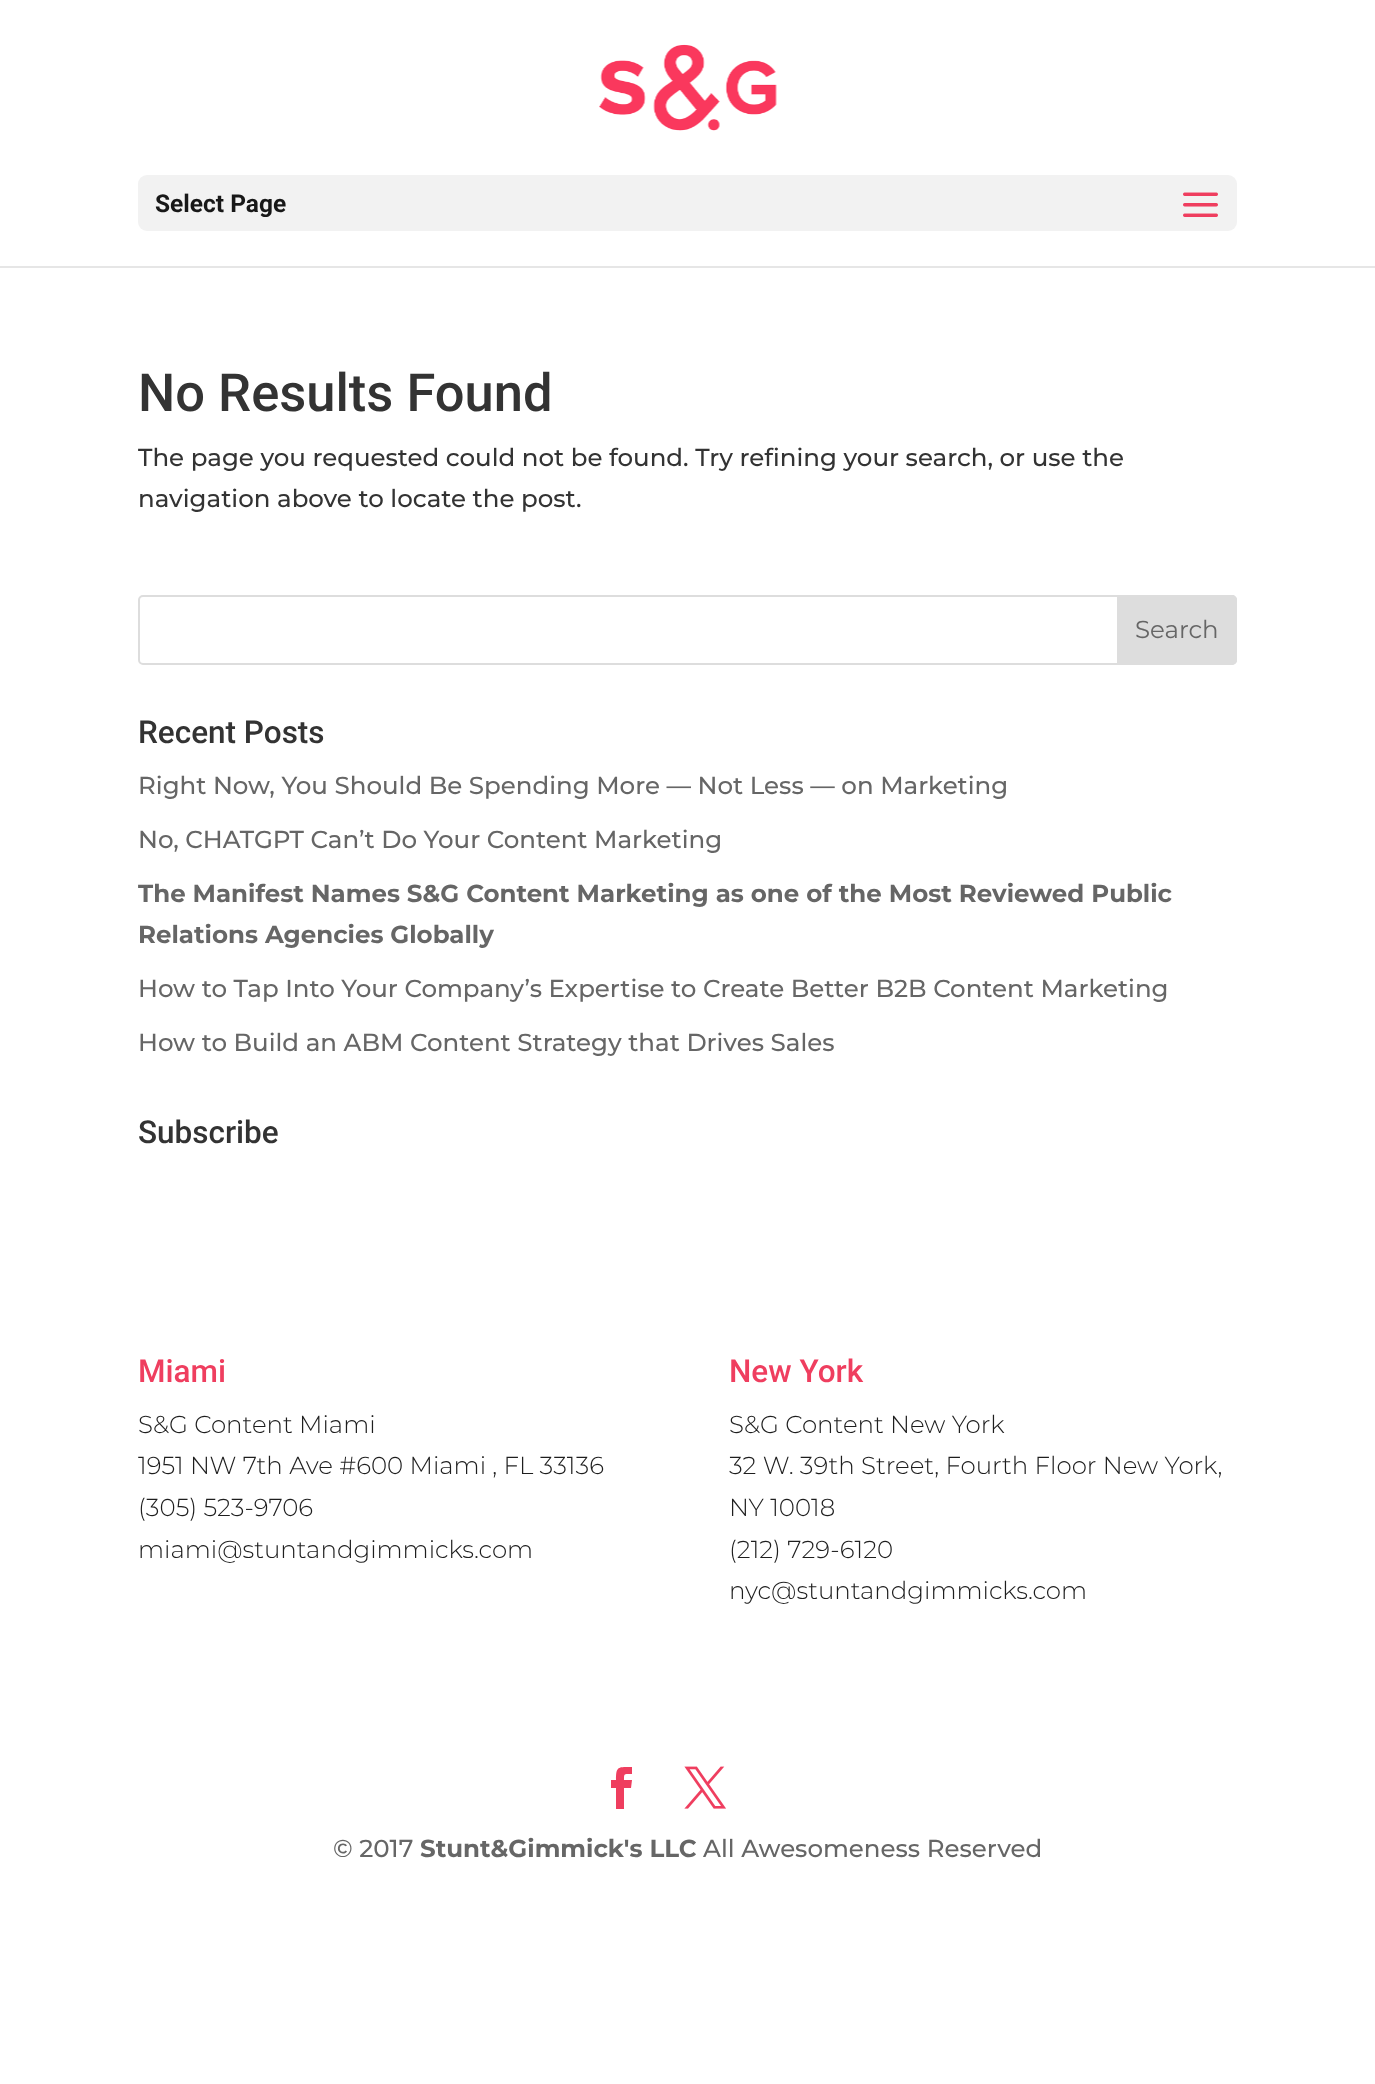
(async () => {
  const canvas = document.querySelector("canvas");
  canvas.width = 1375;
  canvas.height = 2084;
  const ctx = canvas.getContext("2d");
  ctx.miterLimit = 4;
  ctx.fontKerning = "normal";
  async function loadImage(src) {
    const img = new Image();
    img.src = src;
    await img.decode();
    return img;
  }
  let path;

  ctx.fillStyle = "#ffffff";
  ctx.fillRect(0, 0, 1375, 2084);
  ctx.fillStyle = "#e6e6e6";
  path = new Path2D("M0 266V268H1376V2V266Z");
  ctx.fill(path);
  ctx.drawImage(await loadImage("img/1.png"), 599, 44, 178, 87);
  ctx.fillStyle = "#f2f2f2";
  ctx.beginPath();
  ctx.roundRect(138, 175, 1099, 56, 9);
  ctx.fill();
  ctx.drawImage(await loadImage("img/2.png"), 1183, 192, 35, 25);
  ctx.beginPath();
  ctx.roundRect(139, 596, 1097, 68, 4);
  ctx.strokeStyle = "#dddddd";
  ctx.lineWidth = 2;
  ctx.stroke();
  ctx.fillStyle = "#dddddd";
  ctx.beginPath();
  ctx.roundRect(1118, 596, 118, 68, [0, 4, 4, 0]);
  ctx.fill();
  ctx.stroke();
  ctx.fillStyle = "#ef3e5f";
  path = new Path2D("M616 1809H624V1788H631L632 1780H624C624 1773 624 1774 632 1774V1767C618 1767 616 1766 616 1780H611V1788H616Z");
  ctx.fill(path);
  ctx.drawImage(await loadImage("img/3.png"), 684, 1766, 42, 43);
  ctx.font = "bold 24.5px Roboto";
  ctx.fillStyle = "#181818";
  ctx.fillText("Select Page", 155, 212);
  ctx.font = "500 52.5px Roboto";
  ctx.fillStyle = "#333333";
  ctx.fillText("No Results Found", 138, 411);
  ctx.font = "500 24.5px Montserrat";
  ctx.fillText("The page you requested could not be found. Try refining your search, or use the", 138, 466);
  ctx.fillText("navigation above to locate the post.", 138, 507);
  ctx.font = "24.5px Montserrat";
  ctx.fillStyle = "#666666";
  ctx.fillText("Search", 1135, 638);
  ctx.font = "500 31.5px Roboto";
  ctx.fillStyle = "#333333";
  ctx.fillText("Recent Posts", 138, 743);
  ctx.font = "500 24.5px Montserrat";
  ctx.fillStyle = "#666666";
  ctx.fillText("Right Now, You Should Be Spending More — Not Less — on Marketing", 138, 794);
  ctx.fillText("No, CHATGPT Can’t Do Your Content Marketing", 138, 848);
  ctx.font = "bold 24.5px Montserrat";
  ctx.fillText("The Manifest Names S&G Content Marketing as one of the Most Reviewed Public", 138, 902);
  ctx.fillText("Relations Agencies Globally", 138, 943);
  ctx.font = "500 24.5px Montserrat";
  ctx.fillText("How to Tap Into Your Company’s Expertise to Create Better B2B Content Marketing", 138, 997);
  ctx.fillText("How to Build an ABM Content Strategy that Drives Sales", 138, 1051);
  ctx.font = "500 31.5px Roboto";
  ctx.fillStyle = "#333333";
  ctx.fillText("Subscribe", 138, 1143);
  ctx.fillStyle = "#ef3e5f";
  ctx.fillText("Miami", 138, 1382);
  ctx.font = "300 24.5px Montserrat";
  ctx.fillStyle = "#1e1e1e";
  for (const [text, x, y] of [
    ["S&G Content Miami", 138, 1433],
    ["1951 NW 7th Ave #600 Miami , FL 33136", 138, 1474],
    ["(305) 523-9706", 138, 1516],
    ["miami@stuntandgimmicks.com", 138, 1558],
  ]) {
    ctx.fillText(text, x, y);
  }
  ctx.font = "500 31.5px Roboto";
  ctx.fillStyle = "#ef3e5f";
  ctx.fillText("New York", 729, 1382);
  ctx.font = "300 24.5px Montserrat";
  ctx.fillStyle = "#1e1e1e";
  for (const [text, x, y] of [
    ["S&G Content New York", 729, 1433],
    ["32 W. 39th Street, Fourth Floor New York,", 729, 1474],
    ["NY 10018", 729, 1516],
    ["(212) 729-6120", 729, 1558],
    ["nyc@stuntandgimmicks.com", 729, 1599],
  ]) {
    ctx.fillText(text, x, y);
  }
  ctx.font = "500 24.5px Montserrat";
  ctx.fillStyle = "#666666";
  ctx.fillText("© 2017", 333, 1857);
  ctx.font = "bold 24.5px Montserrat";
  ctx.fillText("Stunt&Gimmick's LLC", 420, 1857);
  ctx.font = "500 24.5px Montserrat";
  ctx.fillText("All Awesomeness Reserved", 703, 1857);
})();
